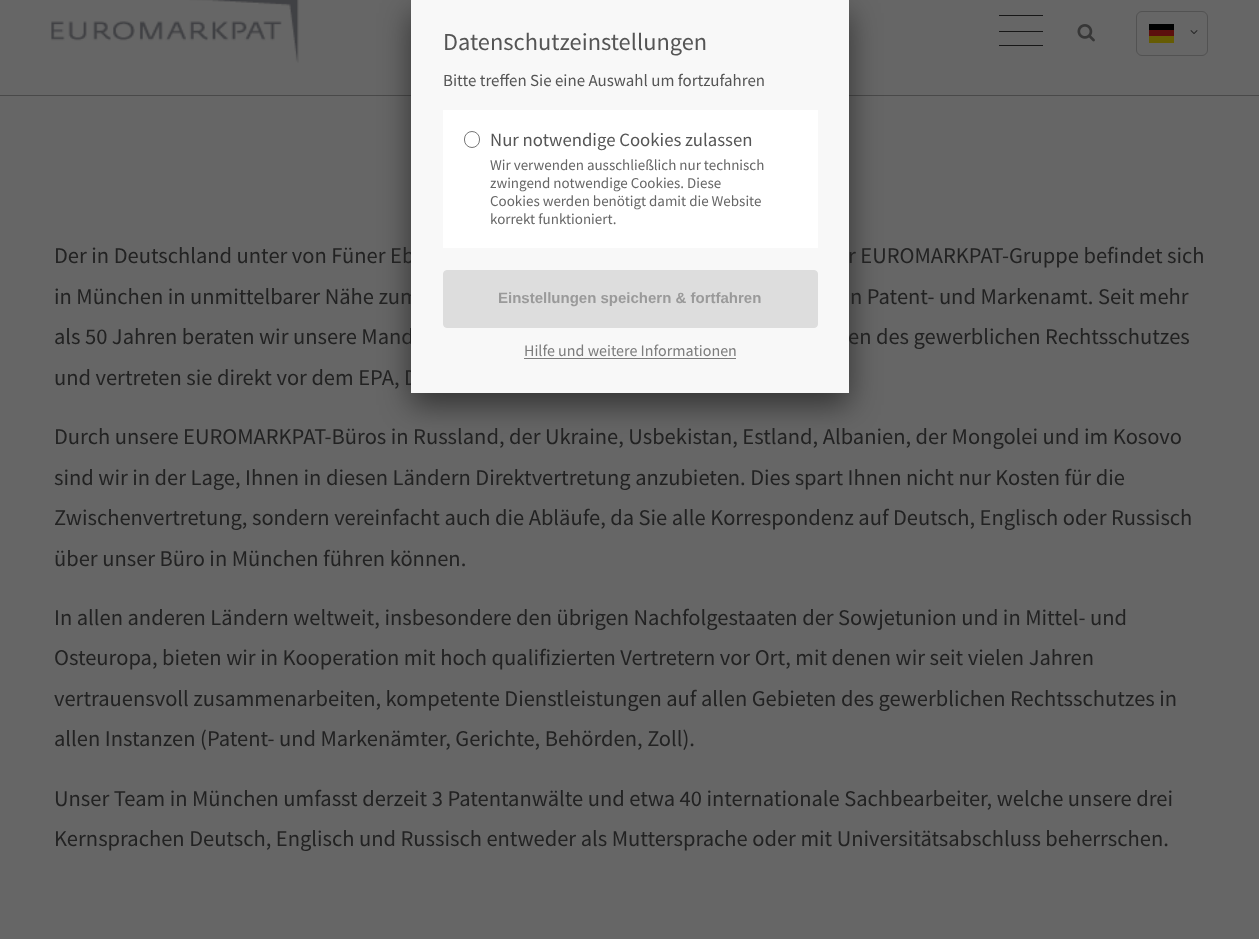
(async () => {
  const canvas = document.querySelector("canvas");
  canvas.width = 1259;
  canvas.height = 939;
  const ctx = canvas.getContext("2d");
  ctx.miterLimit = 4;
  ctx.fontKerning = "normal";
  async function loadImage(src) {
    const img = new Image();
    img.src = src;
    await img.decode();
    return img;
  }

  ctx.fillStyle = "#666666";
  ctx.fillRect(0, 0, 1259, 939);
  ctx.fillStyle = "#494949";
  ctx.fillRect(0, 95, 1259, 1);
  ctx.fillStyle = "rgba(0, 0, 0, 0.5)";
  ctx.filter = "blur(15.5px)";
  ctx.beginPath();
  ctx.rect(411, 13, 438, 392);
  ctx.fill();
  ctx.filter = "none";
  ctx.drawImage(await loadImage("img/1.png"), 51, 0, 248, 63);
  for (const [x, y, w, h, color] of [
    [999, 31, 44, 1, "#171717"],
    [999, 15, 44, 1, "#171717"],
    [999, 45, 44, 1, "#171717"],
  ]) {
    ctx.fillStyle = color;
    ctx.fillRect(x, y, w, h);
  }
  ctx.drawImage(await loadImage("img/2.png"), 1077, 24, 18, 18);
  for (const [x, y, w, h, color] of [
    [1149, 24, 25, 6, "#000101"],
    [1149, 30, 25, 6, "#5c0f0d"],
    [1149, 36, 25, 7, "#665c04"],
  ]) {
    ctx.fillStyle = color;
    ctx.fillRect(x, y, w, h);
  }
  ctx.beginPath();
  ctx.roundRect(1136.5, 11.5, 71, 44, 5.5);
  ctx.strokeStyle = "#525252";
  ctx.stroke();
  ctx.drawImage(await loadImage("img/3.png"), 1190, 30, 8, 4);
  ctx.font = "22.5px Source Sans Pro";
  ctx.fillStyle = "#222222";
  for (const [text, x, y] of [
    ["Der in Deutschland unter von Füner Eb", 54, 263],
    ["r EUROMARKPAT-Gruppe befindet sich", 848, 263],
    ["in München in unmittelbarer Nähe zum", 54, 304],
    ["n Patent- und Markenamt. Seit mehr", 850, 304],
    ["als 50 Jahren beraten wir unsere Mand", 54, 344],
    ["en des gewerblichen Rechtsschutzes", 848, 344],
    ["und vertreten sie direkt vor dem EPA, D", 54, 385],
  ]) {
    ctx.fillText(text, x, y);
  }
  ctx.fillStyle = "#f8f8f8";
  ctx.fillRect(411, 0, 438, 393);
  ctx.fillStyle = "#dddddd";
  ctx.beginPath();
  ctx.roundRect(443.5, 270.5, 374, 57, 3.5);
  ctx.fill();
  ctx.strokeStyle = "#dddddd";
  ctx.stroke();
  ctx.font = "bold 15px Liberation Sans";
  ctx.fillStyle = "#9a9a9a";
  ctx.fillText("Einstellungen speichern & fortfahren", 498, 303);
  ctx.fillStyle = "#ffffff";
  ctx.fillRect(443, 110, 375, 138);
  ctx.font = "15px Source Sans Pro";
  ctx.fillStyle = "#666666";
  for (const [text, x, y] of [
    ["korrekt funktioniert.", 490, 224],
    ["Cookies werden benötigt damit die Website", 490, 206],
    ["zwingend notwendige Cookies. Diese", 490, 188],
    ["Wir verwenden ausschließlich nur technisch", 490, 170],
  ]) {
    ctx.fillText(text, x, y);
  }
  ctx.font = "18.75px Source Sans Pro";
  ctx.fillStyle = "#555555";
  ctx.fillText("Nur notwendige Cookies zulassen", 490, 146);
  ctx.beginPath();
  ctx.roundRect(464.5, 131.5, 15, 16, 7.5);
  ctx.strokeStyle = "#767676";
  ctx.stroke();
  ctx.font = "16px Source Sans Pro";
  ctx.fillStyle = "#7c7c7c";
  ctx.fillText("Hilfe und weitere Informationen", 524, 356);
  ctx.fillRect(524, 358, 212, 1);
  ctx.font = "16.9px Source Sans Pro";
  ctx.fillStyle = "#555555";
  ctx.fillText("Bitte treffen Sie eine Auswahl um fortzufahren", 443, 86);
  ctx.font = "24.4px Source Sans Pro";
  ctx.fillText("Datenschutzeinstellungen", 443, 50);
  ctx.font = "22.5px Source Sans Pro";
  ctx.fillStyle = "#222222";
  for (const [text, x, y] of [
    ["Durch unsere EUROMARKPAT-Büros in Russland, der Ukraine, Usbekistan, Estland, Albanien, der Mongolei und im Kosovo", 54, 444],
    ["sind wir in der Lage, Ihnen in diesen Ländern Direktvertretung anzubieten. Dies spart Ihnen nicht nur Kosten für die", 54, 485],
    ["Zwischenvertretung, sondern vereinfacht auch die Abläufe, da Sie alle Korrespondenz auf Deutsch, Englisch oder Russisch", 54, 525],
    ["über unser Büro in München führen können.", 54, 566],
    ["In allen anderen Ländern weltweit, insbesondere den übrigen Nachfolgestaaten der Sowjetunion und in Mittel- und", 54, 625],
    ["Osteuropa, bieten wir in Kooperation mit hoch qualifizierten Vertretern vor Ort, mit denen wir seit vielen Jahren", 54, 665],
    ["vertrauensvoll zusammenarbeiten, kompetente Dienstleistungen auf allen Gebieten des gewerblichen Rechtsschutzes in", 54, 706],
    ["allen Instanzen (Patent- und Markenämter, Gerichte, Behörden, Zoll).", 54, 746],
    ["Unser Team in München umfasst derzeit 3 Patentanwälte und etwa 40 internationale Sachbearbeiter, welche unsere drei", 54, 806],
    ["Kernsprachen Deutsch, Englisch und Russisch entweder als Muttersprache oder mit Universitätsabschluss beherrschen.", 54, 846],
  ]) {
    ctx.fillText(text, x, y);
  }
})();
